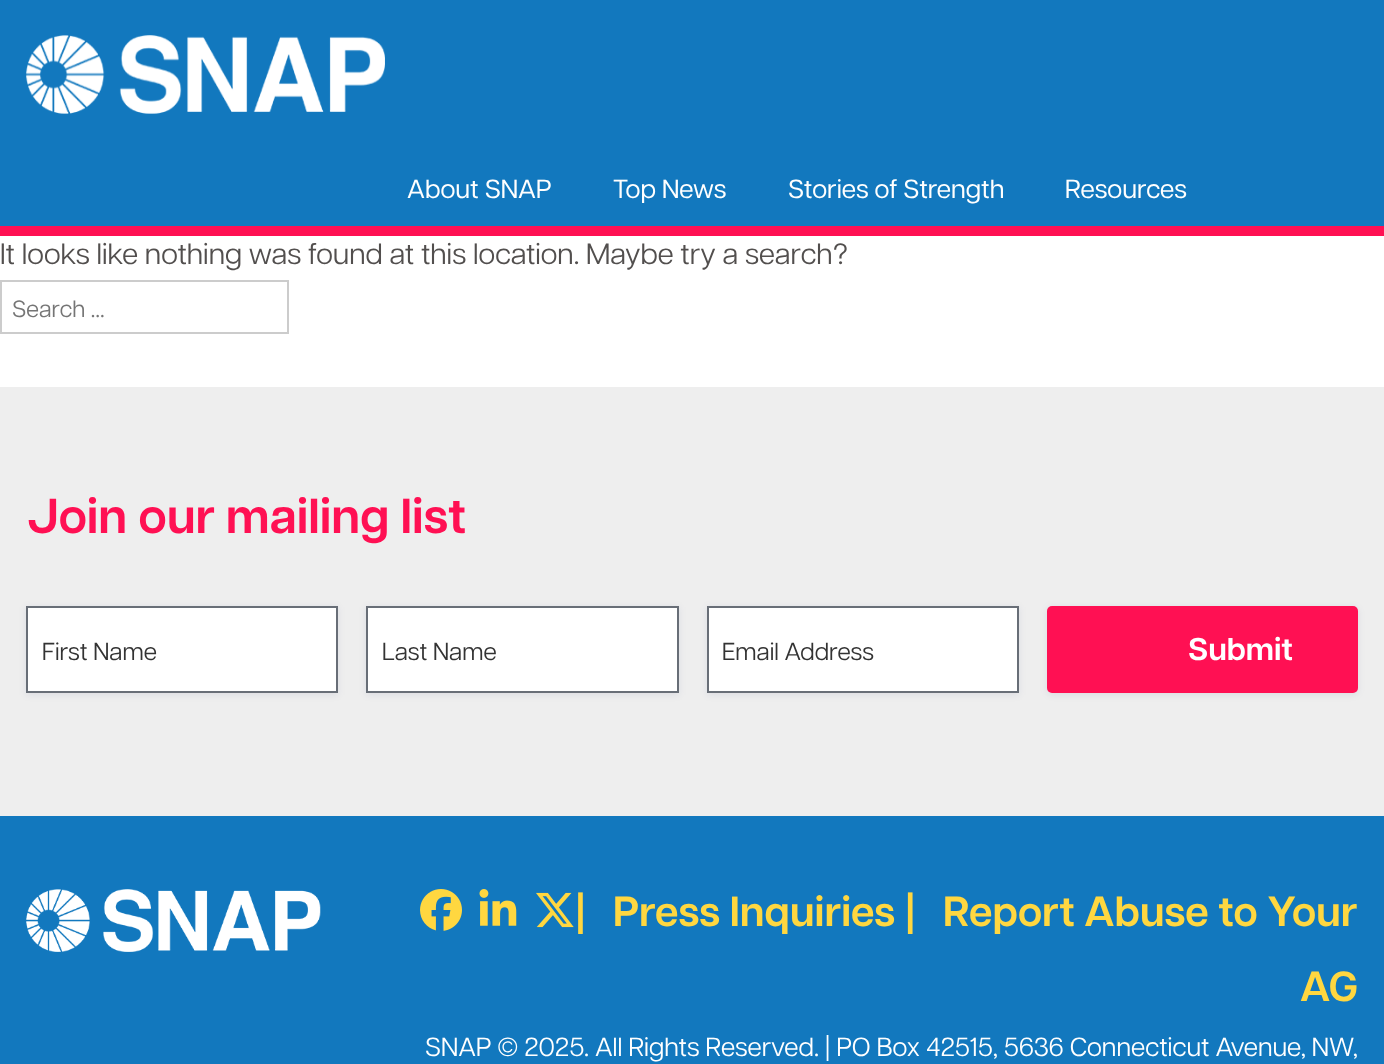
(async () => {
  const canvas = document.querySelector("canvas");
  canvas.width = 1384;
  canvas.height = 1064;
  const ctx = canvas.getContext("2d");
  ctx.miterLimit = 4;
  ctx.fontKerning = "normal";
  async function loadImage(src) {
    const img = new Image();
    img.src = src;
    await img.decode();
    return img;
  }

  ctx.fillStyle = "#ffffff";
  ctx.fillRect(0, 0, 1384, 1064);
  ctx.fillStyle = "#1278be";
  ctx.fillRect(0, 0, 1384, 226);
  ctx.fillStyle = "#ff1053";
  ctx.fillRect(0, 226, 1384, 10);
  ctx.drawImage(await loadImage("img/1.png"), 26, 35, 359, 79);
  ctx.strokeStyle = "#cccccc";
  ctx.lineWidth = 2;
  ctx.strokeRect(1, 281, 287, 52);
  ctx.fillStyle = "#eeeeee";
  ctx.fillRect(0, 387, 1384, 429);
  ctx.fillStyle = "rgba(18, 25, 97, 0.08)";
  ctx.filter = "blur(3.5px)";
  ctx.beginPath();
  ctx.rect(26, 607, 312, 88);
  ctx.fill();
  ctx.filter = "none";
  ctx.fillStyle = "#ffffff";
  ctx.beginPath();
  ctx.rect(27, 607, 310, 85);
  ctx.fill();
  ctx.strokeStyle = "#686e77";
  ctx.stroke();
  ctx.fillStyle = "rgba(18, 25, 97, 0.08)";
  ctx.filter = "blur(3.5px)";
  ctx.beginPath();
  ctx.rect(366, 607, 313, 88);
  ctx.fill();
  ctx.filter = "none";
  ctx.fillStyle = "#ffffff";
  ctx.beginPath();
  ctx.rect(367, 607, 311, 85);
  ctx.fill();
  ctx.stroke();
  ctx.fillStyle = "rgba(18, 25, 97, 0.08)";
  ctx.filter = "blur(3.5px)";
  ctx.beginPath();
  ctx.rect(707, 607, 312, 88);
  ctx.fill();
  ctx.filter = "none";
  ctx.fillStyle = "#ffffff";
  ctx.beginPath();
  ctx.rect(708, 607, 310, 85);
  ctx.fill();
  ctx.stroke();
  ctx.fillStyle = "rgba(18, 25, 97, 0.08)";
  ctx.filter = "blur(3.5px)";
  ctx.beginPath();
  ctx.roundRect(1047, 607, 311, 88, 5);
  ctx.fill();
  ctx.filter = "none";
  ctx.fillStyle = "#ff1053";
  ctx.beginPath();
  ctx.roundRect(1047, 606, 311, 87, 5);
  ctx.fill();
  ctx.fillStyle = "#1278be";
  ctx.fillRect(0, 816, 1384, 248);
  ctx.drawImage(await loadImage("img/2.png"), 26, 889, 295, 63);
  ctx.drawImage(await loadImage("img/3.png"), 420, 889, 42, 42);
  ctx.drawImage(await loadImage("img/4.png"), 479, 889, 38, 37);
  ctx.drawImage(await loadImage("img/5.png"), 536, 892, 38, 36);
  ctx.font = "26.25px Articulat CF";
  ctx.fillStyle = "#ffffff";
  for (const [text, x, y] of [
    ["About SNAP", 407, 198],
    ["Top News", 613, 198],
    ["Stories of Strength", 788, 198],
    ["Resources", 1065, 198],
  ]) {
    ctx.fillText(text, x, y);
  }
  ctx.font = "29.4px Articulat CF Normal";
  ctx.fillStyle = "#524f4e";
  ctx.fillText("It looks like nothing was found at this location. Maybe try a search?", 0, 264);
  ctx.font = "23.5px Articulat CF Normal";
  ctx.fillStyle = "#757575";
  ctx.fillText("Search …", 12, 317);
  ctx.font = "600 49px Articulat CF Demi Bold";
  ctx.fillStyle = "#ff1053";
  ctx.fillText("Join our mailing list", 26, 533);
  ctx.font = "24.5px Articulat CF Normal";
  ctx.fillStyle = "#333333";
  for (const [text, x, y] of [
    ["First Name", 42, 660],
    ["Last Name", 382, 660],
    ["Email Address", 722, 660],
  ]) {
    ctx.fillText(text, x, y);
  }
  ctx.font = "600 31.5px Articulat CF Demi Bold";
  ctx.fillStyle = "#ffffff";
  ctx.fillText("Submit", 1188, 660);
  ctx.font = "600 42px Articulat CF Demi Bold";
  ctx.fillStyle = "#ffd740";
  for (const [text, x, y] of [
    ["|", 575, 926],
    ["Press Inquiries |", 613, 926],
    ["Report Abuse to Your", 943, 926],
    ["AG", 1300, 1001],
  ]) {
    ctx.fillText(text, x, y);
  }
  ctx.font = "26.25px Articulat CF Normal";
  ctx.fillStyle = "#ffffff";
  ctx.fillText("SNAP © 2025. All Rights Reserved. | PO Box 42515, 5636 Connecticut Avenue, NW,", 425, 1056);
})();
